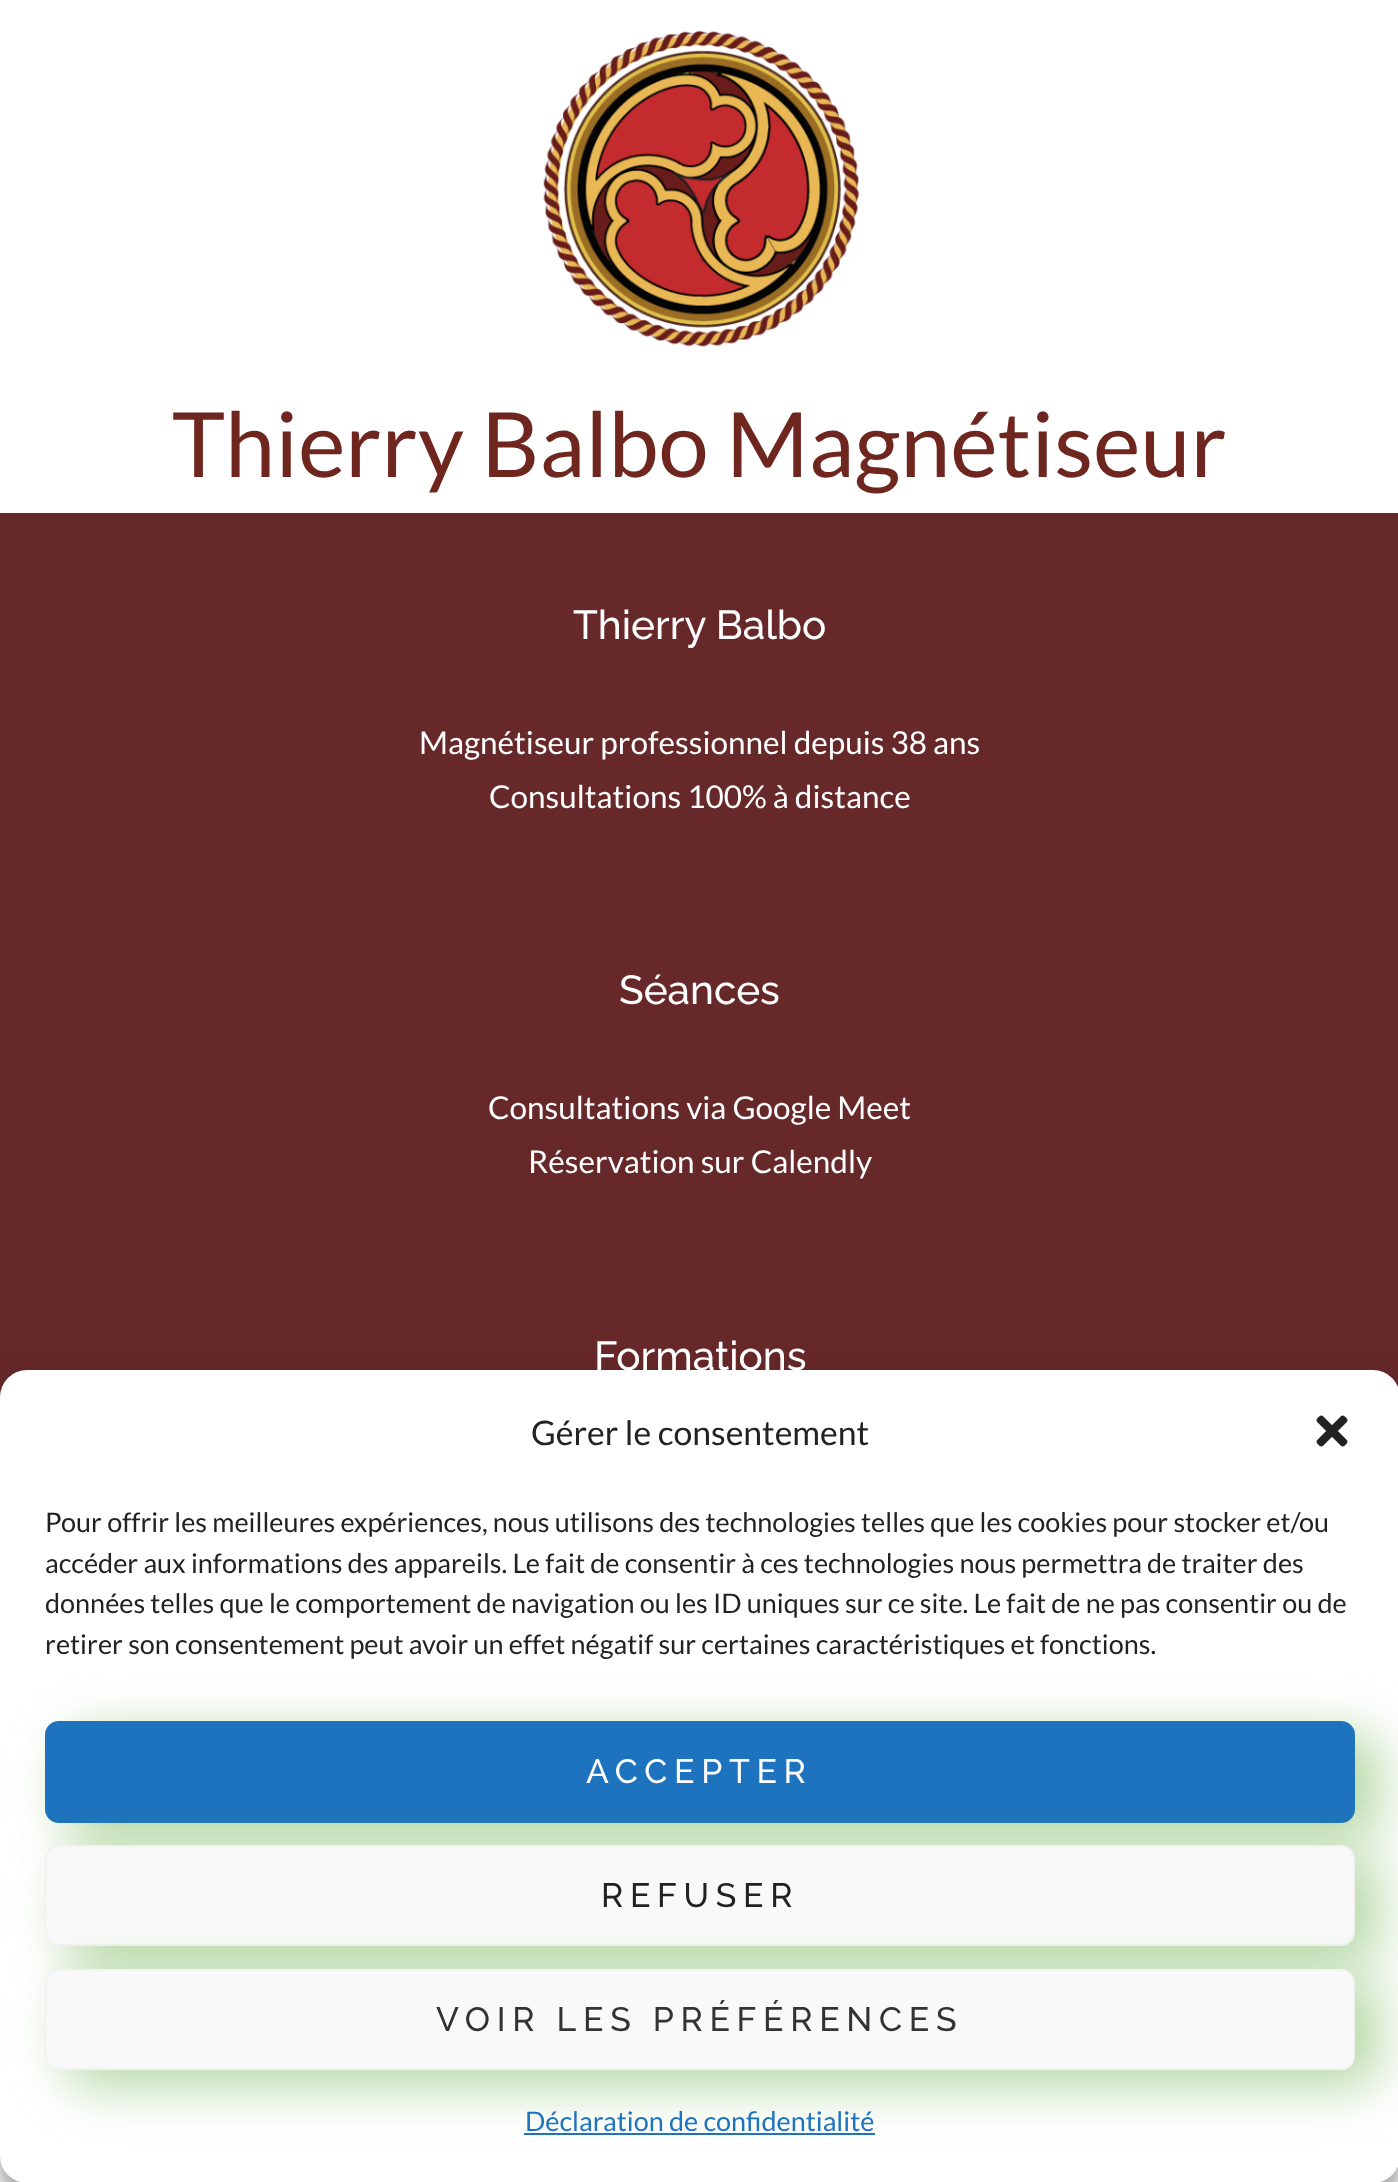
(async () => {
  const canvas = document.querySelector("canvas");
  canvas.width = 1398;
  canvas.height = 2182;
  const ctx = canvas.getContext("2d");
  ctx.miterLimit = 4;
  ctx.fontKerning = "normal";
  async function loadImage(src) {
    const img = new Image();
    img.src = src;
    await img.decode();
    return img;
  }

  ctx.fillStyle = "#ffffff";
  ctx.fillRect(0, 0, 1398, 2182);
  ctx.drawImage(await loadImage("img/1.png"), 543, 30, 317, 317);
  ctx.fillStyle = "#662829";
  ctx.fillRect(0, 513, 1398, 884);
  ctx.fillStyle = "rgba(0, 0, 0, 0.23)";
  ctx.filter = "blur(7px)";
  ctx.beginPath();
  ctx.roundRect(0, 1384, 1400, 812, 27);
  ctx.fill();
  ctx.filter = "none";
  ctx.fillStyle = "rgba(0, 0, 0, 0.19)";
  ctx.filter = "blur(22.5px)";
  ctx.beginPath();
  ctx.roundRect(0, 1393, 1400, 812, 27);
  ctx.fill();
  ctx.filter = "none";
  ctx.fillStyle = "#ffffff";
  ctx.beginPath();
  ctx.roundRect(0, 1370, 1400, 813, 27);
  ctx.fill();
  ctx.drawImage(await loadImage("img/2.png"), 1316, 1415, 32, 32);
  ctx.fillStyle = "rgba(85, 166, 48, 0.47)";
  ctx.filter = "blur(27px)";
  ctx.beginPath();
  ctx.roundRect(68, 1735, 1309, 101, 14);
  ctx.fill();
  ctx.filter = "none";
  ctx.fillStyle = "#1e73be";
  ctx.beginPath();
  ctx.roundRect(46, 1722, 1308, 100, 13);
  ctx.fill();
  ctx.strokeStyle = "#1e73be";
  ctx.lineWidth = 2;
  ctx.stroke();
  ctx.fillStyle = "rgba(85, 166, 48, 0.47)";
  ctx.filter = "blur(27px)";
  ctx.beginPath();
  ctx.roundRect(68, 1859, 1309, 101, 14);
  ctx.fill();
  ctx.filter = "none";
  ctx.fillStyle = "#f9f9f9";
  ctx.beginPath();
  ctx.roundRect(46, 1846, 1308, 99, 13);
  ctx.fill();
  ctx.strokeStyle = "#f2f2f2";
  ctx.stroke();
  ctx.fillStyle = "rgba(85, 166, 48, 0.47)";
  ctx.filter = "blur(27px)";
  ctx.beginPath();
  ctx.roundRect(68, 1982, 1309, 102, 14);
  ctx.fill();
  ctx.filter = "none";
  ctx.fillStyle = "#f9f9f9";
  ctx.beginPath();
  ctx.roundRect(46, 1970, 1308, 99, 13);
  ctx.fill();
  ctx.stroke();
  ctx.fillStyle = "#1e73be";
  ctx.fillRect(524, 2133, 351, 2);
  ctx.font = "90px Lato";
  ctx.fillStyle = "#6f261e";
  ctx.fillText("Thierry Balbo Magnétiseur", 172, 477);
  ctx.font = "500 40.5px Raleway";
  ctx.fillStyle = "#ffffff";
  ctx.fillText("Thierry Balbo", 573, 639);
  ctx.font = "31.5px Lato";
  ctx.fillText("Magnétiseur professionnel depuis 38 ans", 419, 754);
  ctx.fillText("Consultations 100% à distance", 489, 808);
  ctx.font = "500 40.5px Raleway";
  ctx.fillText("Séances", 619, 1004);
  ctx.font = "31.5px Lato";
  ctx.fillText("Consultations via Google Meet", 488, 1119);
  ctx.fillText("Réservation sur Calendly", 528, 1173);
  ctx.font = "500 40.5px Raleway";
  ctx.fillText("Formations", 594, 1370);
  ctx.font = "33.75px Lato";
  ctx.fillStyle = "#222222";
  ctx.fillText("Gérer le consentement", 531, 1445);
  ctx.font = "27px Lato";
  for (const [text, x, y] of [
    ["Pour offrir les meilleures expériences, nous utilisons des technologies telles que les cookies pour stocker et/ou", 45, 1532],
    ["accéder aux informations des appareils. Le fait de consentir à ces technologies nous permettra de traiter des", 45, 1573],
    ["données telles que le comportement de navigation ou les ID uniques sur ce site. Le fait de ne pas consentir ou de", 45, 1613],
    ["retirer son consentement peut avoir un effet négatif sur certaines caractéristiques et fonctions.", 45, 1654],
  ]) {
    ctx.fillText(text, x, y);
  }
  ctx.letterSpacing = "6.75px";
  ctx.font = "500 33.75px Raleway";
  ctx.fillStyle = "#ffffff";
  ctx.fillText("ACCEPTER", 586, 1783);
  ctx.fillStyle = "#222222";
  ctx.fillText("REFUSER", 601, 1907);
  ctx.fillStyle = "#333333";
  ctx.fillText("VOIR LES PRÉFÉRENCES", 436, 2031);
  ctx.letterSpacing = "0px";
  ctx.font = "27px Lato";
  ctx.fillStyle = "#1e73be";
  ctx.fillText("Déclaration de confidentialité", 525, 2131);
})();
